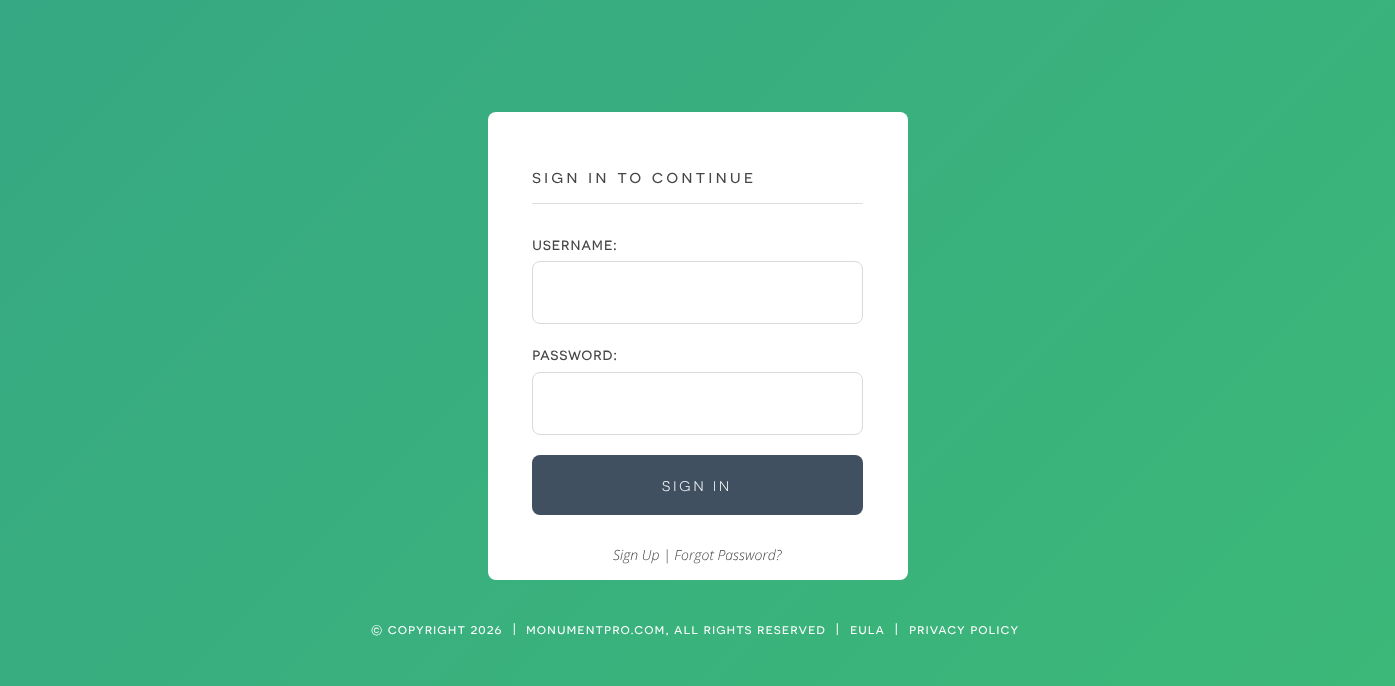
(async () => {
  const canvas = document.querySelector("canvas");
  canvas.width = 1395;
  canvas.height = 686;
  const ctx = canvas.getContext("2d");
  ctx.miterLimit = 4;
  ctx.fontKerning = "normal";
  let gradient;

  ctx.fillStyle = "#ffffff";
  ctx.fillRect(0, 0, 1395, 686);
  gradient = ctx.createLinearGradient(177, -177, 1218, 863);
  gradient.addColorStop(0, "#36a883");
  gradient.addColorStop(1, "#3cb878");
  ctx.fillStyle = gradient;
  ctx.fillRect(0, 0, 1395, 686);
  ctx.fillStyle = "#ffffff";
  ctx.beginPath();
  ctx.roundRect(488, 112, 420, 468, 8);
  ctx.fill();
  ctx.fillStyle = "#dddddd";
  ctx.fillRect(532, 203, 331, 1);
  ctx.beginPath();
  ctx.roundRect(532.5, 261.5, 330, 62, 7.5);
  ctx.strokeStyle = "#dadada";
  ctx.stroke();
  ctx.beginPath();
  ctx.roundRect(532.5, 372.5, 330, 62, 7.5);
  ctx.stroke();
  ctx.fillStyle = "#415061";
  ctx.beginPath();
  ctx.roundRect(532, 455, 331, 60, 8);
  ctx.fill();
  ctx.letterSpacing = "3px";
  ctx.font = "18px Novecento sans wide";
  ctx.fillStyle = "#464646";
  ctx.fillText("sign in to continue", 532, 183);
  ctx.letterSpacing = "1px";
  ctx.font = "bold 16px Novecento sans wide";
  ctx.fillText("username:", 532, 250);
  ctx.fillText("password:", 532, 360);
  ctx.letterSpacing = "3px";
  ctx.font = "300 14px Novecento sans wide";
  ctx.fillStyle = "#ffffff";
  ctx.fillText("SIGN IN", 662, 491);
  ctx.letterSpacing = "0px";
  ctx.font = "italic 300 14px Open Sans";
  ctx.fillStyle = "#464646";
  ctx.fillText("Sign Up | Forgot Password?", 613, 560);
  ctx.letterSpacing = "1px";
  ctx.font = "14px Novecento sans wide";
  ctx.fillStyle = "#ffffff";
  for (const [text, x, y] of [
    ["© copyright 2026", 371, 634],
    ["|", 513, 634],
    ["monumentpro.com, all rights reserved", 526, 634],
    ["|", 836, 634],
    ["eula", 850, 634],
    ["|", 895, 634],
    ["privacy policy", 909, 634],
  ]) {
    ctx.fillText(text, x, y);
  }
})();
